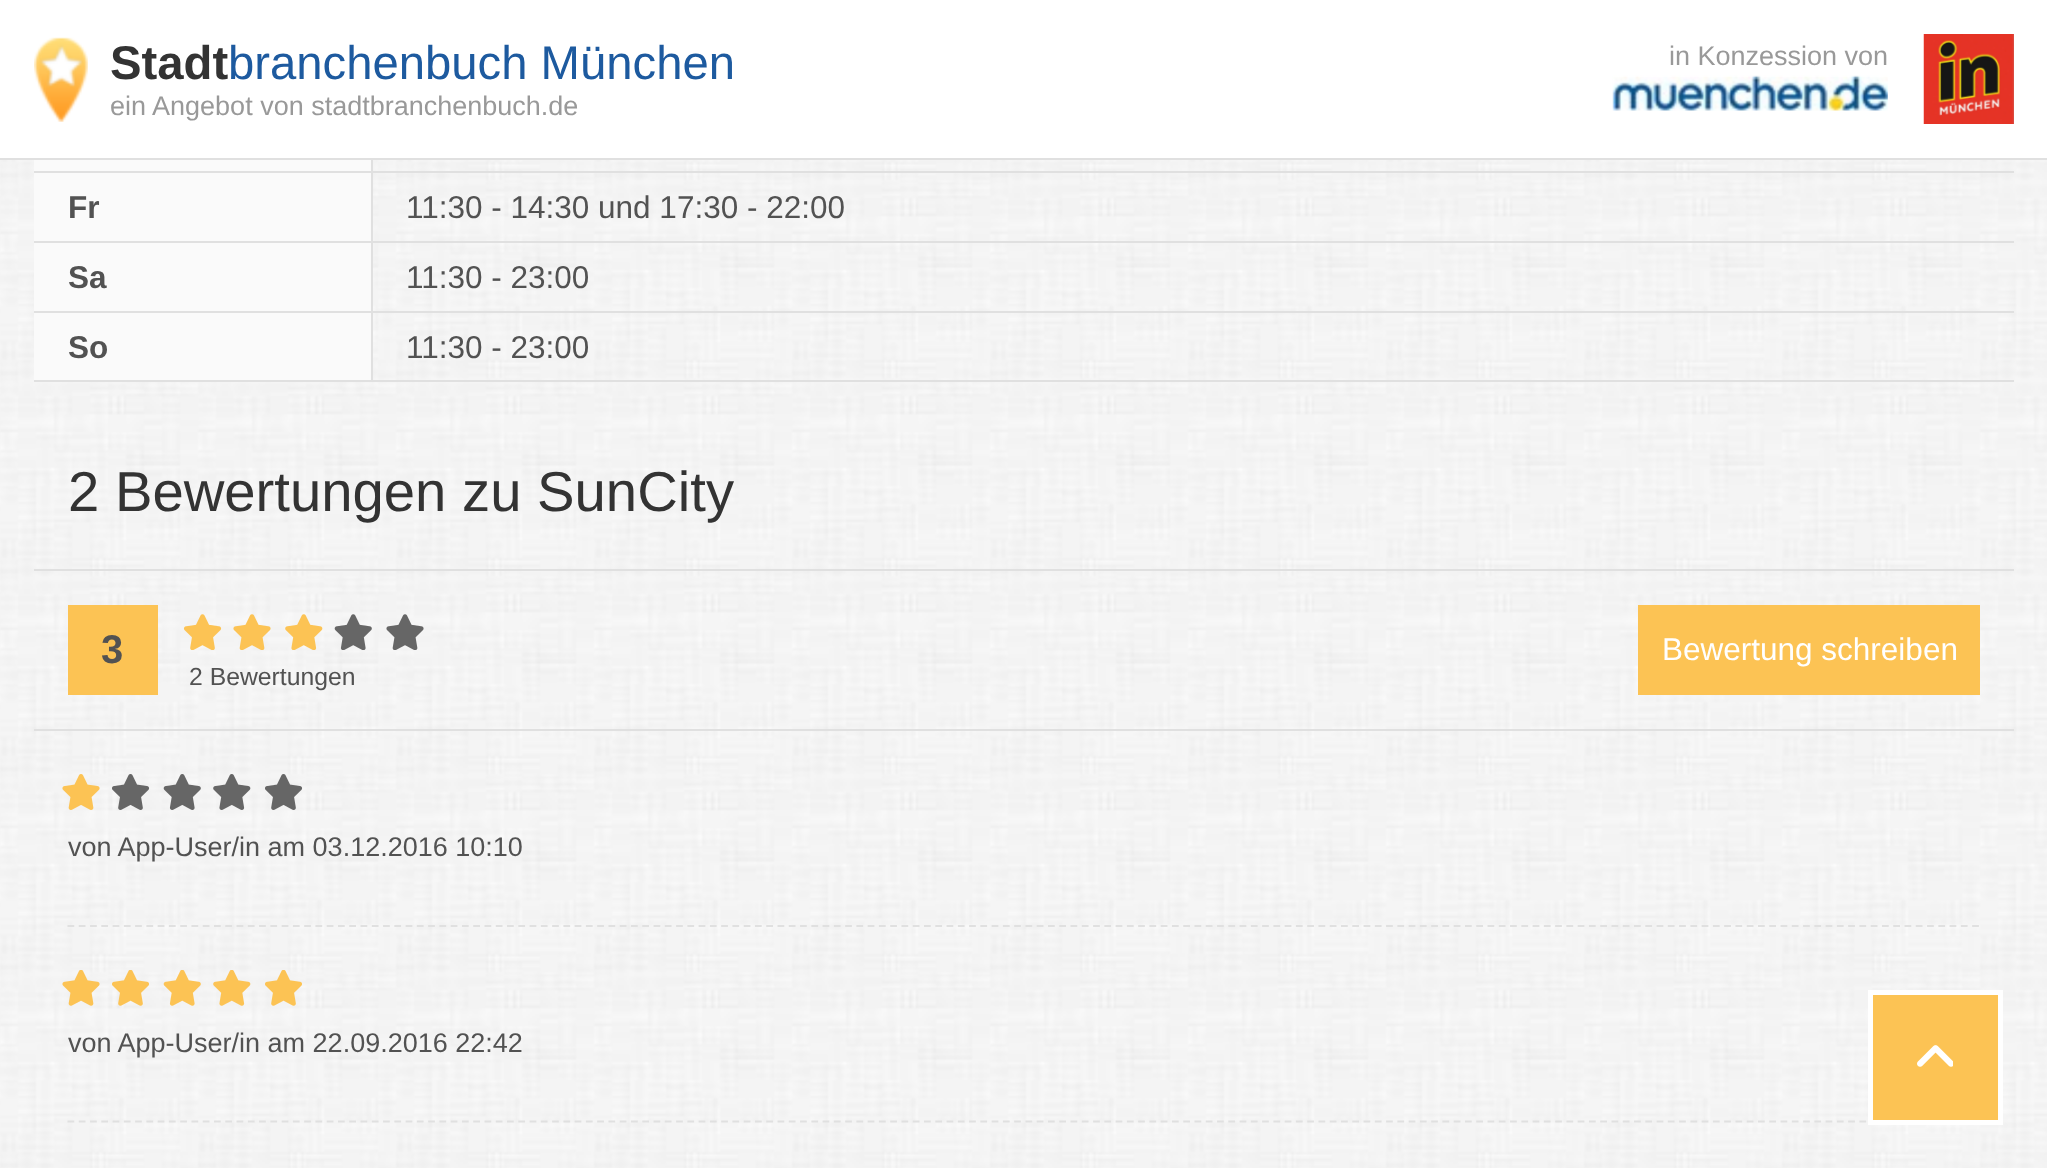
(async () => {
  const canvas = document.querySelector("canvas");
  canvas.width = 2047;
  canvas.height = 1168;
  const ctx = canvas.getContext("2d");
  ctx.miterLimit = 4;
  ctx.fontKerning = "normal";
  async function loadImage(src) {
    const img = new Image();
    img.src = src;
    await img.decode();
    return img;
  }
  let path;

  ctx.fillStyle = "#ffffff";
  ctx.fillRect(0, 0, 2047, 1168);
  ctx.drawImage(await loadImage("img/1.png"), 0, 160, 2047, 1008);
  ctx.fillStyle = "#e0e0e0";
  ctx.fillRect(0, 158, 2047, 2);
  ctx.drawImage(await loadImage("img/2.png"), 34, 37, 54, 85);
  ctx.drawImage(await loadImage("img/3.png"), 1612, 75, 276, 36);
  ctx.drawImage(await loadImage("img/4.png"), 1923, 34, 91, 90);
  for (const [x, y, w, h, color] of [
    [34, 171, 1980, 2, "#e0e0e0"],
    [34, 160, 337, 11, "#fafafa"],
    [371, 160, 2, 11, "#e0e0e0"],
    [34, 241, 1980, 2, "#e0e0e0"],
    [34, 173, 337, 68, "#fafafa"],
    [371, 173, 2, 68, "#e0e0e0"],
    [34, 311, 1980, 2, "#e0e0e0"],
    [34, 243, 337, 68, "#fafafa"],
    [371, 243, 2, 68, "#e0e0e0"],
    [34, 380, 1980, 2, "#e0e0e0"],
    [34, 313, 337, 67, "#fafafa"],
    [371, 313, 2, 67, "#e0e0e0"],
    [34, 569, 1980, 2, "#e0e0e0"],
    [34, 729, 1980, 2, "#e0e0e0"],
    [68, 605, 90, 90, "#fcc354"],
  ]) {
    ctx.fillStyle = color;
    ctx.fillRect(x, y, w, h);
  }
  ctx.drawImage(await loadImage("img/5.png"), 183, 614, 39, 36);
  ctx.drawImage(await loadImage("img/6.png"), 233, 614, 38, 36);
  ctx.drawImage(await loadImage("img/7.png"), 285, 614, 38, 36);
  ctx.drawImage(await loadImage("img/8.png"), 334, 614, 38, 36);
  ctx.drawImage(await loadImage("img/9.png"), 386, 614, 38, 36);
  ctx.fillRect(1638, 605, 342, 90);
  path = new Path2D("M67.5 926H1980");
  ctx.strokeStyle = "#e0e0e0";
  ctx.lineWidth = 2.2;
  ctx.setLineDash([6.75, 4.52]);
  ctx.stroke(path);
  ctx.drawImage(await loadImage("img/10.png"), 62, 774, 38, 36);
  ctx.drawImage(await loadImage("img/11.png"), 112, 774, 38, 36);
  ctx.drawImage(await loadImage("img/12.png"), 163, 774, 38, 36);
  ctx.drawImage(await loadImage("img/13.png"), 213, 774, 38, 36);
  ctx.drawImage(await loadImage("img/14.png"), 265, 774, 38, 36);
  path = new Path2D("M67.5 1121.5H1980");
  ctx.stroke(path);
  ctx.drawImage(await loadImage("img/15.png"), 62, 970, 38, 36);
  ctx.drawImage(await loadImage("img/16.png"), 112, 970, 37, 36);
  ctx.drawImage(await loadImage("img/17.png"), 163, 970, 38, 36);
  ctx.drawImage(await loadImage("img/18.png"), 213, 970, 38, 36);
  ctx.drawImage(await loadImage("img/19.png"), 265, 970, 37, 36);
  ctx.beginPath();
  ctx.rect(1870.5, 992.5, 130, 130);
  ctx.fill();
  ctx.strokeStyle = "#ffffff";
  ctx.lineWidth = 5;
  ctx.setLineDash([]);
  ctx.stroke();
  ctx.drawImage(await loadImage("img/20.png"), 1917, 1045, 36, 22);
  ctx.font = "bold 47.25px Liberation Sans";
  ctx.fillStyle = "#333333";
  ctx.fillText("Stadt", 110, 79);
  ctx.font = "47.25px Liberation Sans";
  ctx.fillStyle = "#1d5a9f";
  ctx.fillText("branchenbuch München", 228, 79);
  ctx.font = "27px Liberation Sans";
  ctx.fillStyle = "#999999";
  ctx.fillText("ein Angebot von stadtbranchenbuch.de", 110, 115);
  ctx.fillText("in Konzession von", 1669, 65);
  ctx.font = "bold 31.5px Liberation Sans";
  ctx.fillStyle = "#525252";
  ctx.fillText("Fr", 68, 218);
  ctx.font = "31.5px Liberation Sans";
  ctx.fillText("11:30 - 14:30 und 17:30 - 22:00", 406, 218);
  ctx.font = "bold 31.5px Liberation Sans";
  ctx.fillText("Sa", 68, 288);
  ctx.font = "31.5px Liberation Sans";
  ctx.fillText("11:30 - 23:00", 406, 288);
  ctx.font = "bold 31.5px Liberation Sans";
  ctx.fillText("So", 68, 358);
  ctx.font = "31.5px Liberation Sans";
  ctx.fillText("11:30 - 23:00", 406, 358);
  ctx.font = "56.25px Liberation Sans";
  ctx.fillStyle = "#333333";
  ctx.fillText("2 Bewertungen zu SunCity", 68, 511);
  ctx.font = "bold 40px Liberation Sans";
  ctx.fillStyle = "#525252";
  ctx.fillText("3", 101, 663);
  ctx.font = "24.75px Liberation Sans";
  ctx.fillText("2 Bewertungen", 189, 685);
  ctx.font = "31.5px Liberation Sans";
  ctx.fillStyle = "#ffffff";
  ctx.fillText("Bewertung schreiben", 1662, 660);
  ctx.font = "27px Liberation Sans";
  ctx.fillStyle = "#525252";
  ctx.fillText("von App-User/in am 03.12.2016 10:10", 68, 856);
  ctx.fillText("von App-User/in am 22.09.2016 22:42", 68, 1052);
})();
